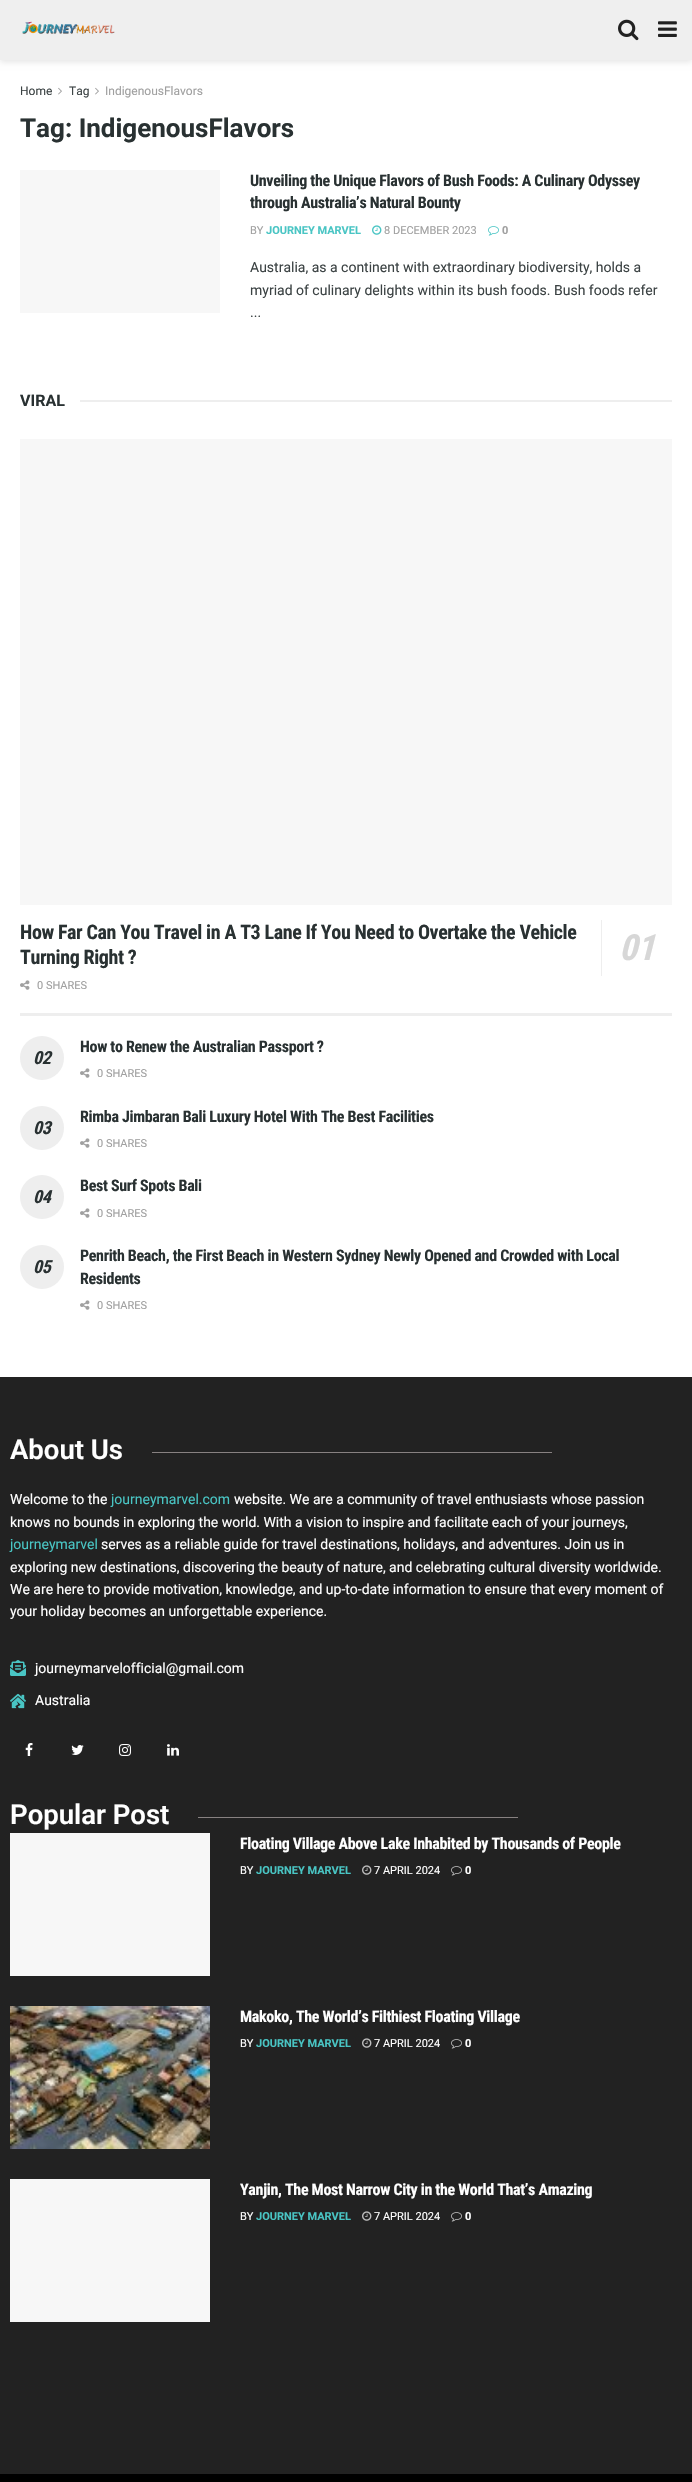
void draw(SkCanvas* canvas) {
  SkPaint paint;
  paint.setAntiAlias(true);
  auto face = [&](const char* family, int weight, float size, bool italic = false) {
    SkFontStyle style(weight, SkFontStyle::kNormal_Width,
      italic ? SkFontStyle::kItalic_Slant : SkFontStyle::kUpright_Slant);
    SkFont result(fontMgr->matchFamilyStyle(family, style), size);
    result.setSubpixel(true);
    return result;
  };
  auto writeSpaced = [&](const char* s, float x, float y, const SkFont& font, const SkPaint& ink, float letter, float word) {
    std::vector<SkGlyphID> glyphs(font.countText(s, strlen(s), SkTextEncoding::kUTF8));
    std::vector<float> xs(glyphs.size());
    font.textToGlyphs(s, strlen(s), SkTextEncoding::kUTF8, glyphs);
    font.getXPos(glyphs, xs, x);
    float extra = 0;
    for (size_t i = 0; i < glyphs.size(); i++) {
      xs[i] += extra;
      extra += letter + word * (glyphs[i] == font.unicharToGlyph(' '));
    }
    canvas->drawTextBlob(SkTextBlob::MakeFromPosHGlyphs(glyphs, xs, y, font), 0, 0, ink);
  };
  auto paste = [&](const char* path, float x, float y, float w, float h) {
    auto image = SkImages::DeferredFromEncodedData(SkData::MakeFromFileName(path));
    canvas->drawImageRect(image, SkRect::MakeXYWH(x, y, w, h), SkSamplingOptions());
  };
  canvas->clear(0xffffffff);
  paint.setColor(0x1a000000);
  paint.setMaskFilter(SkMaskFilter::MakeBlur(kNormal_SkBlurStyle, 3));
  canvas->drawRect(SkRect::MakeXYWH(0, 2, 692, 60), paint);
  paint.setMaskFilter(nullptr);
  paint.setColor(0xffefefef);
  canvas->drawRect(SkRect::MakeXYWH(0, 0, 692, 60), paint);
  paste("img/1.png", 22, 21, 93, 13);
  paste("img/2.png", 618, 19, 21, 22);
  paste("img/3.png", 658, 21, 19, 16);
  paste("img/4.png", 58, 87, 4, 8);
  paste("img/4.png", 95, 87, 4, 8);
  paint.setColor(0xfff7f7f7);
  canvas->drawRect(SkRect::MakeXYWH(20, 170, 200, 143), paint);
  paste("img/5.png", 372, 225, 10, 10);
  paste("img/6.png", 488, 226, 11, 10);
  {
    const struct { float x, y, w, h; SkColor color; } items[] = {
      {80, 400, 592, 2, 0xffeeeeee},
      {20, 1013, 652, 3, 0xffeeeeee},
      {20, 439, 652, 466, 0xfff7f7f7},
      {601, 920, 1, 56, 0xffeeeeee},
    };
    for (auto [x, y, w, h, color] : items) {
      paint.setColor(color);
      canvas->drawRect(SkRect::MakeXYWH(x, y, w, h), paint);
    }
  }
  paste("img/7.png", 20, 980, 10, 10);
  canvas->drawCircle(42, 1058, 22, paint);
  paste("img/7.png", 80, 1068, 10, 10);
  canvas->drawCircle(42, 1128, 22, paint);
  paste("img/7.png", 80, 1138, 10, 10);
  canvas->drawCircle(42, 1197, 22, paint);
  paste("img/7.png", 80, 1208, 10, 10);
  canvas->drawCircle(42, 1267, 22, paint);
  paste("img/7.png", 80, 1300, 10, 10);
  paint.setColor(0xff222222);
  canvas->drawRect(SkRect::MakeXYWH(0, 1377, 692, 1097), paint);
  paint.setColor(0xff878181);
  canvas->drawRect(SkRect::MakeXYWH(152, 1452, 400, 1), paint);
  paste("img/8.png", 10, 1660, 16, 16);
  paste("img/9.png", 10, 1693, 16, 16);
  paste("img/10.png", 25, 1743, 8, 13);
  paste("img/11.png", 71, 1745, 13, 10);
  paste("img/12.png", 119, 1744, 12, 12);
  paste("img/13.png", 167, 1744, 12, 12);
  canvas->drawRect(SkRect::MakeXYWH(198, 1817, 320, 1), paint);
  paint.setColor(0xfff7f7f7);
  canvas->drawRect(SkRect::MakeXYWH(10, 1833, 200, 143), paint);
  paste("img/14.png", 362, 1865, 10, 10);
  paste("img/15.png", 451, 1866, 11, 10);
  paste("img/16.png", 10, 2006, 200, 143);
  paste("img/14.png", 362, 2038, 10, 10);
  paste("img/15.png", 451, 2039, 11, 10);
  canvas->drawRect(SkRect::MakeXYWH(10, 2179, 200, 143), paint);
  paste("img/14.png", 362, 2211, 10, 10);
  paste("img/15.png", 451, 2212, 11, 10);
  paint.setColor(0xff000000);
  canvas->drawRect(SkRect::MakeXYWH(0, 2474, 692, 8), paint);
  auto f0 = face("Roboto", 400, 12);
  paint.setColor(0xff3c4344);
  canvas->drawString("Home", 20, 95, f0, paint);
  canvas->drawString("Tag", 69, 95, f0, paint);
  paint.setColor(0xffa0a0a0);
  canvas->drawString("IndigenousFlavors", 105, 95, f0, paint);
  auto f1 = face("Roboto", 700, 26);
  paint.setColor(0xff293132);
  canvas->drawString("Tag: IndigenousFlavors", 20, 137, f1, paint);
  auto f2 = face("Roboto Condensed", 700, 16);
  writeSpaced("Unveiling the Unique Flavors of Bush Foods: A Culinary Odyssey", 250, 186, f2, paint, -0.32f, 0);
  writeSpaced("through Australia’s Natural Bounty", 250, 208, f2, paint, -0.32f, 0);
  auto f3 = face("Roboto", 400, 11);
  paint.setColor(0xffa0a0a0);
  canvas->drawString("BY", 250, 234, f3, paint);
  auto f4 = face("Roboto", 700, 11);
  paint.setColor(0xff49c5c4);
  canvas->drawString("JOURNEY MARVEL", 266, 234, f4, paint);
  paint.setColor(0xffa0a0a0);
  canvas->drawString("8 DECEMBER 2023", 384, 234, f3, paint);
  canvas->drawString("0", 502, 234, f4, paint);
  auto f5 = face("Roboto", 400, 14);
  paint.setColor(0xff3c4344);
  {
    const struct { const char* s; float x, y; } items[] = {
      {"Australia, as a continent with extraordinary biodiversity, holds a", 250, 272},
      {"myriad of culinary delights within its bush foods. Bush foods refer", 250, 295},
      {"...", 250, 317},
    };
    for (auto [s, x, y] : items) {
      canvas->drawString(s, x, y, f5, paint);
    }
  }
  auto f6 = face("Roboto", 700, 16);
  paint.setColor(0xff293132);
  canvas->drawString("VIRAL", 20, 406, f6, paint);
  auto f7 = face("Roboto Condensed", 700, 20);
  writeSpaced("How Far Can You Travel in A T3 Lane If You Need to Overtake the Vehicle", 20, 939, f7, paint, -0.4f, 0);
  writeSpaced("Turning Right ?", 20, 964, f7, paint, -0.4f, 0);
  auto f8 = face("Roboto Condensed", 700, 36, true);
  paint.setColor(0xffd7d7d7);
  writeSpaced("01", 619, 960, f8, paint, -0.4f, 0);
  paint.setColor(0xffa0a0a0);
  canvas->drawString("0 SHARES", 37, 989, f3, paint);
  paint.setColor(0xff293132);
  writeSpaced("How to Renew the Australian Passport ?", 80, 1052, f2, paint, -0.32f, 0);
  auto f9 = face("Roboto Condensed", 700, 18, true);
  writeSpaced("02", 33, 1064, f9, paint, -0.32f, 0);
  paint.setColor(0xffa0a0a0);
  canvas->drawString("0 SHARES", 97, 1077, f3, paint);
  paint.setColor(0xff293132);
  writeSpaced("Rimba Jimbaran Bali Luxury Hotel With The Best Facilities", 80, 1122, f2, paint, -0.32f, 0);
  writeSpaced("03", 33, 1134, f9, paint, -0.32f, 0);
  paint.setColor(0xffa0a0a0);
  canvas->drawString("0 SHARES", 97, 1147, f3, paint);
  paint.setColor(0xff293132);
  writeSpaced("Best Surf Spots Bali", 80, 1191, f2, paint, -0.32f, 0);
  writeSpaced("04", 33, 1203, f9, paint, -0.32f, 0);
  paint.setColor(0xffa0a0a0);
  canvas->drawString("0 SHARES", 97, 1217, f3, paint);
  paint.setColor(0xff293132);
  writeSpaced("Penrith Beach, the First Beach in Western Sydney Newly Opened and Crowded with Local", 80, 1261, f2, paint, -0.32f, 0);
  writeSpaced("05", 33, 1273, f9, paint, -0.32f, 0);
  writeSpaced("Residents", 80, 1284, f2, paint, -0.32f, 0);
  paint.setColor(0xffa0a0a0);
  canvas->drawString("0 SHARES", 97, 1309, f3, paint);
  auto f10 = face("Roboto", 600, 27.5f);
  paint.setColor(0xffffffff);
  canvas->drawString("About Us", 10, 1459, f10, paint);
  canvas->drawString("Welcome to the", 10, 1504, f5, paint);
  paint.setColor(0xff49c5c4);
  canvas->drawString("journeymarvel.com", 111, 1504, f5, paint);
  paint.setColor(0xffffffff);
  canvas->drawString("website. We are a community of travel enthusiasts whose passion", 234, 1504, f5, paint);
  canvas->drawString("knows no bounds in exploring the world. With a vision to inspire and facilitate each of your journeys,", 10, 1527, f5, paint);
  paint.setColor(0xff49c5c4);
  canvas->drawString("journeymarvel", 10, 1549, f5, paint);
  paint.setColor(0xffffffff);
  {
    const struct { const char* s; float x, y; } items[] = {
      {"serves as a reliable guide for travel destinations, holidays, and adventures. Join us in", 101, 1549},
      {"exploring new destinations, discovering the beauty of nature, and celebrating cultural diversity worldwide.", 10, 1572},
      {"We are here to provide motivation, knowledge, and up-to-date information to ensure that every moment of", 10, 1594},
      {"your holiday becomes an unforgettable experience.", 10, 1616},
      {"journeymarvelofficial@gmail.com", 35, 1673},
      {"Australia", 35, 1705},
    };
    for (auto [s, x, y] : items) {
      canvas->drawString(s, x, y, f5, paint);
    }
  }
  canvas->drawString("Popular Post", 10, 1824, f10, paint);
  writeSpaced("Floating Village Above Lake Inhabited by Thousands of People", 240, 1849, f2, paint, -0.32f, 0);
  canvas->drawString("BY", 240, 1874, f3, paint);
  paint.setColor(0xff49c5c4);
  canvas->drawString("JOURNEY MARVEL", 256, 1874, f4, paint);
  paint.setColor(0xffffffff);
  canvas->drawString("7 APRIL 2024", 374, 1874, f3, paint);
  canvas->drawString("0", 465, 1874, f4, paint);
  writeSpaced("Makoko, The World’s Filthiest Floating Village", 240, 2022, f2, paint, -0.32f, 0);
  canvas->drawString("BY", 240, 2047, f3, paint);
  paint.setColor(0xff49c5c4);
  canvas->drawString("JOURNEY MARVEL", 256, 2047, f4, paint);
  paint.setColor(0xffffffff);
  canvas->drawString("7 APRIL 2024", 374, 2047, f3, paint);
  canvas->drawString("0", 465, 2047, f4, paint);
  writeSpaced("Yanjin, The Most Narrow City in the World That’s Amazing", 240, 2195, f2, paint, -0.32f, 0);
  canvas->drawString("BY", 240, 2220, f3, paint);
  paint.setColor(0xff49c5c4);
  canvas->drawString("JOURNEY MARVEL", 256, 2220, f4, paint);
  paint.setColor(0xffffffff);
  canvas->drawString("7 APRIL 2024", 374, 2220, f3, paint);
  canvas->drawString("0", 465, 2220, f4, paint);
}
